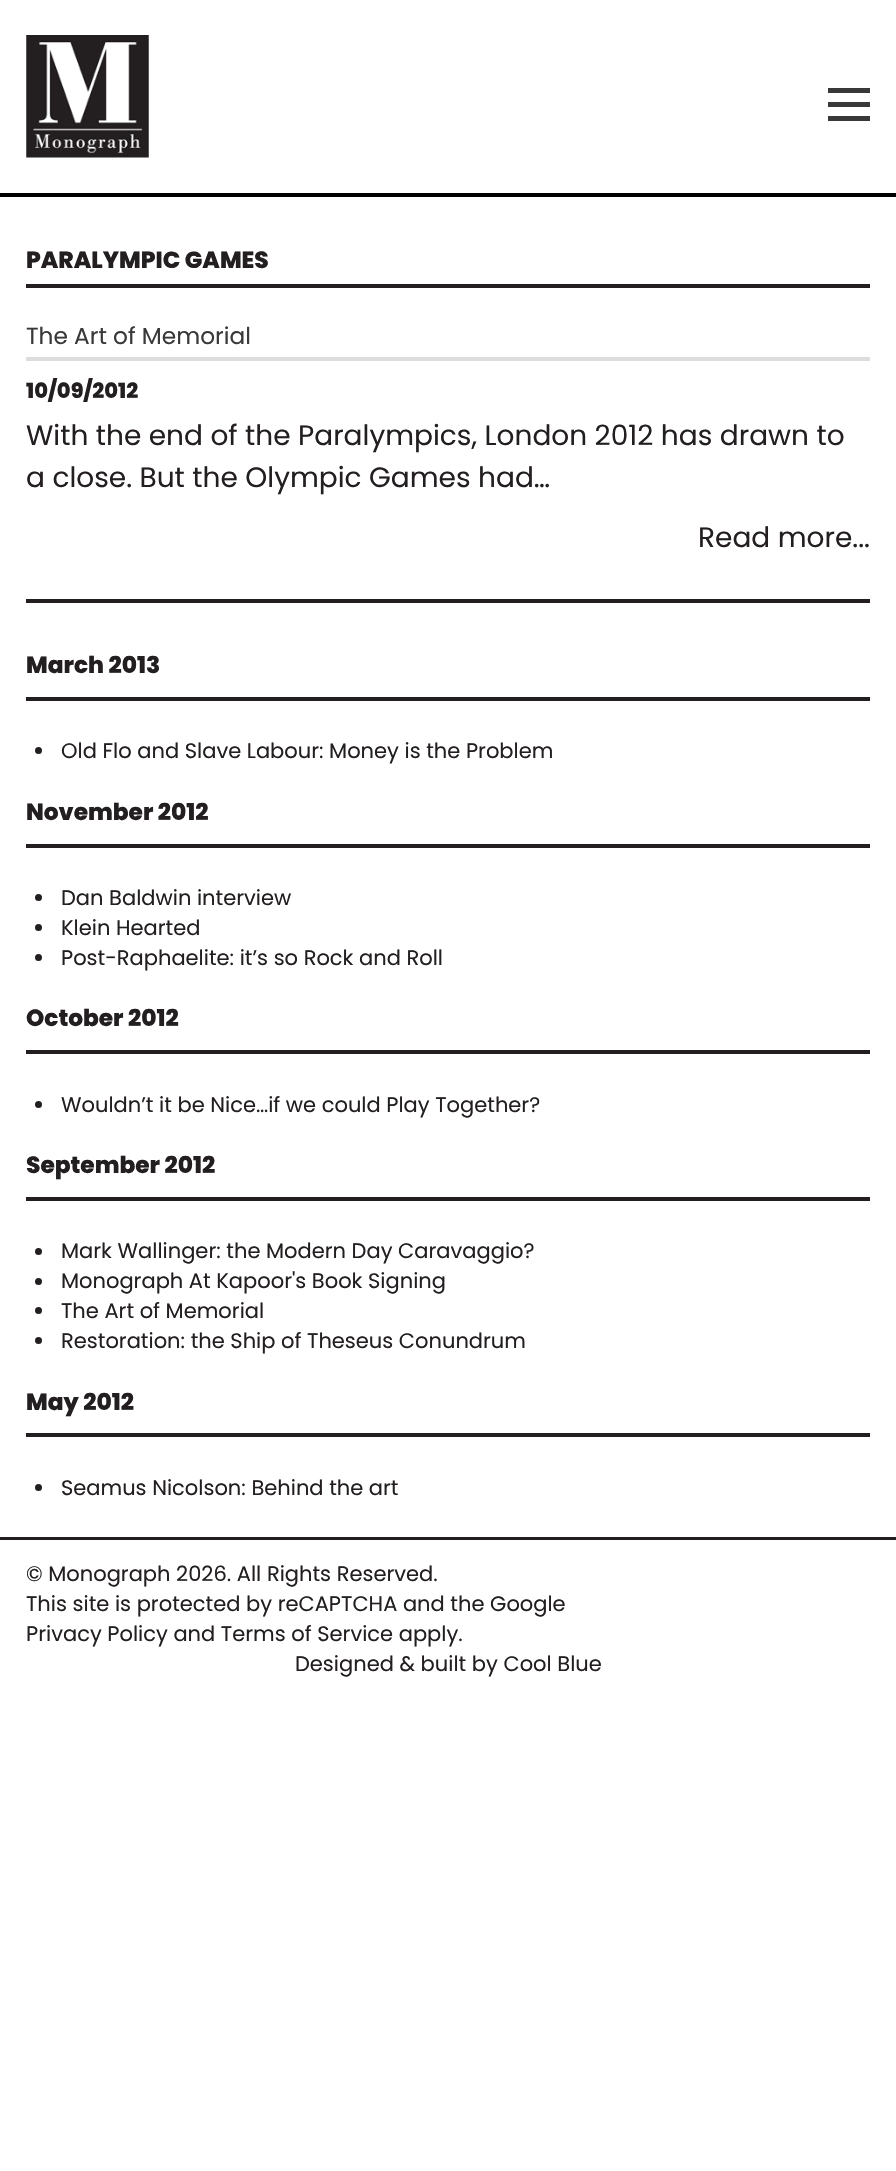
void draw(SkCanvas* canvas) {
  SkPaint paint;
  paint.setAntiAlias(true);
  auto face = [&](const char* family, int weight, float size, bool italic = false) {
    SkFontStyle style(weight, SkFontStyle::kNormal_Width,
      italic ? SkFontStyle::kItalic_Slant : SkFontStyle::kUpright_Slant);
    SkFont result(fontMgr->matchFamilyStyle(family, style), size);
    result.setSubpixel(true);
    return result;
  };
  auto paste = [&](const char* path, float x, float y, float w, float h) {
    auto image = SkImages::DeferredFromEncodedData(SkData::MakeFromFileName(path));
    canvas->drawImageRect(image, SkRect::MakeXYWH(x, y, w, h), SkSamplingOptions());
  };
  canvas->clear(0xffffffff);
  paint.setColor(0xff000000);
  canvas->drawRect(SkRect::MakeXYWH(0, 193, 896, 4), paint);
  paste("img/1.png", 26, 35, 123, 123);
  {
    const struct { float x, y, w, h; SkColor color; } items[] = {
      {828, 88, 42, 5, 0xff393939},
      {828, 102, 42, 5, 0xff393939},
      {828, 116, 42, 5, 0xff393939},
      {26, 284, 844, 4, 0xff231f20},
      {26, 357, 844, 4, 0xffdddddd},
      {26, 599, 844, 4, 0xff231f20},
      {26, 697, 844, 4, 0xff231f20},
    };
    for (auto [x, y, w, h, color] : items) {
      paint.setColor(color);
      canvas->drawRect(SkRect::MakeXYWH(x, y, w, h), paint);
    }
  }
  canvas->drawCircle(38.5f, 750.5f, 3.5f, paint);
  canvas->drawRect(SkRect::MakeXYWH(26, 844, 844, 4), paint);
  canvas->drawCircle(38.5f, 897.5f, 3.5f, paint);
  canvas->drawCircle(38.5f, 927.5f, 3.5f, paint);
  canvas->drawCircle(38.5f, 957.5f, 3.5f, paint);
  canvas->drawRect(SkRect::MakeXYWH(26, 1050, 844, 4), paint);
  canvas->drawCircle(38.5f, 1104.5f, 3.5f, paint);
  canvas->drawRect(SkRect::MakeXYWH(26, 1197, 844, 4), paint);
  canvas->drawCircle(38.5f, 1251.5f, 3.5f, paint);
  canvas->drawCircle(38.5f, 1281.5f, 3.5f, paint);
  canvas->drawCircle(38.5f, 1310.5f, 3.5f, paint);
  canvas->drawCircle(38.5f, 1340.5f, 3.5f, paint);
  canvas->drawRect(SkRect::MakeXYWH(26, 1433, 844, 4), paint);
  canvas->drawCircle(38.5f, 1487.5f, 3.5f, paint);
  canvas->drawRect(SkRect::MakeXYWH(0, 1537, 896, 3), paint);
  auto f0 = face("Poppins", 800, 23.25f);
  canvas->drawString("PARALYMPIC GAMES", 26, 268, f0, paint);
  auto f1 = face("Poppins", 400, 23.25f);
  paint.setColor(0xff393939);
  canvas->drawString("The Art of Memorial", 26, 344, f1, paint);
  auto f2 = face("Poppins", 800, 21);
  paint.setColor(0xff231f20);
  canvas->drawString("10/09/2012", 26, 398, f2, paint);
  auto f3 = face("Poppins", 400, 28);
  {
    const struct { const char* s; float x, y; } items[] = {
      {"With the end of the Paralympics, London 2012 has drawn to", 26, 445},
      {"a close. But the Olympic Games had…", 26, 487},
      {"Read more...", 698, 547},
    };
    for (auto [s, x, y] : items) {
      canvas->drawString(s, x, y, f3, paint);
    }
  }
  canvas->drawString("March 2013", 26, 673, f0, paint);
  auto f4 = face("Poppins", 400, 21);
  canvas->drawString("Old Flo and Slave Labour: Money is the Problem", 61, 758, f4, paint);
  canvas->drawString("November 2012", 26, 820, f0, paint);
  {
    const struct { const char* s; float x, y; } items[] = {
      {"Dan Baldwin interview", 61, 905},
      {"Klein Hearted", 61, 935},
      {"Post-Raphaelite: it’s so Rock and Roll", 61, 965},
    };
    for (auto [s, x, y] : items) {
      canvas->drawString(s, x, y, f4, paint);
    }
  }
  canvas->drawString("October 2012", 26, 1026, f0, paint);
  canvas->drawString("Wouldn’t it be Nice…if we could Play Together?", 61, 1112, f4, paint);
  canvas->drawString("September 2012", 26, 1173, f0, paint);
  {
    const struct { const char* s; float x, y; } items[] = {
      {"Mark Wallinger: the Modern Day Caravaggio?", 61, 1258},
      {"Monograph At Kapoor's Book Signing", 61, 1288},
      {"The Art of Memorial", 61, 1318},
      {"Restoration: the Ship of Theseus Conundrum", 61, 1348},
    };
    for (auto [s, x, y] : items) {
      canvas->drawString(s, x, y, f4, paint);
    }
  }
  canvas->drawString("May 2012", 26, 1410, f0, paint);
  {
    const struct { const char* s; float x, y; } items[] = {
      {"Seamus Nicolson: Behind the art", 61, 1495},
      {"© Monograph 2026. All Rights Reserved.", 26, 1581},
      {"This site is protected by reCAPTCHA and the Google", 26, 1611},
      {"Privacy Policy and Terms of Service apply.", 26, 1641},
      {"Designed & built by Cool Blue", 295, 1671},
    };
    for (auto [s, x, y] : items) {
      canvas->drawString(s, x, y, f4, paint);
    }
  }
}
